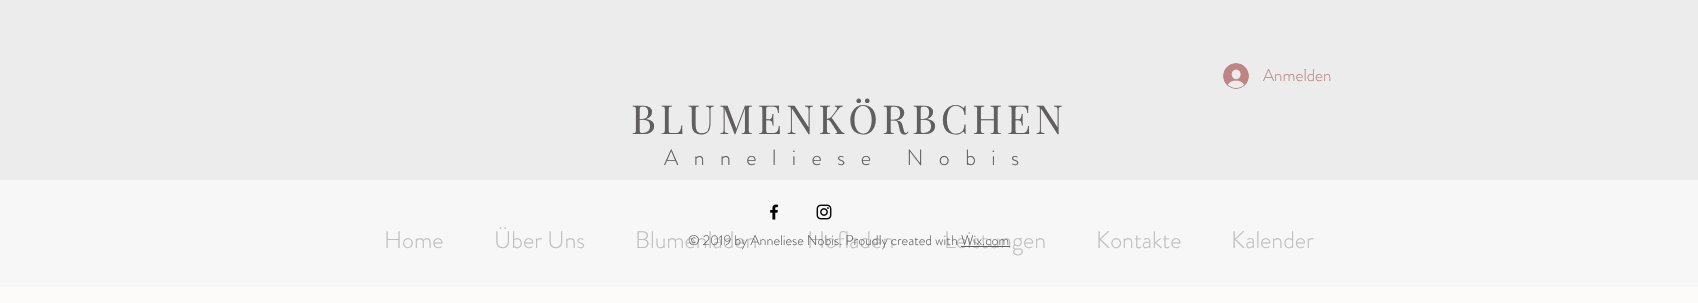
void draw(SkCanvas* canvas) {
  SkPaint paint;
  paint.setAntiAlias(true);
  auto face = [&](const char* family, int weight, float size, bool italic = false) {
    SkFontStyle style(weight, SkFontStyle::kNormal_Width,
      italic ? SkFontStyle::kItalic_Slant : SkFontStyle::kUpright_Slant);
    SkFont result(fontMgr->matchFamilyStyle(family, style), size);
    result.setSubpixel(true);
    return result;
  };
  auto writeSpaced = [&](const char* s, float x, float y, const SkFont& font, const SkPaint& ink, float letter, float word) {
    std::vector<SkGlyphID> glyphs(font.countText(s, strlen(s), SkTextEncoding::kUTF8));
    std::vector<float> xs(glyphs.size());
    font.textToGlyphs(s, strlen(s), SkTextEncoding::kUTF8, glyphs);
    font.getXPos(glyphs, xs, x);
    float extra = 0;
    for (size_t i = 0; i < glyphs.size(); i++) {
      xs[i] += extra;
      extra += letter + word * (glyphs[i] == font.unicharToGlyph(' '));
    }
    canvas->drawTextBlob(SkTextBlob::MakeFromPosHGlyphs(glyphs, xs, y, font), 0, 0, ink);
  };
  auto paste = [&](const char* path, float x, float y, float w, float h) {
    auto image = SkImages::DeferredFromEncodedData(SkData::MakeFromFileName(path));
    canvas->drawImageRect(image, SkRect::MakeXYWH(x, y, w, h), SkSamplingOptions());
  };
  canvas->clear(0xffececec);
  paste("img/1.png", 1223, 63, 26, 26);
  paint.setColor(0xfff7f7f7);
  canvas->drawRect(SkRect::MakeXYWH(0, 180, 1698, 107), paint);
  paste("img/2.png", 770, 204, 9, 16);
  paste("img/3.png", 816, 204, 16, 16);
  paint.setColor(0xfffdfafa);
  canvas->drawRect(SkRect::MakeXYWH(0, 287, 1698, 16), paint);
  auto f0 = face("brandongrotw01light", 300, 17);
  paint.setColor(0xffbf8484);
  canvas->drawString("Anmelden", 1263, 81, f0, paint);
  auto f1 = face("Playfair Display", 400, 40);
  paint.setColor(0xff605e5e);
  writeSpaced("BLUMENKÖRBCHEN", 631, 134, f1, paint, 4, 0);
  auto f2 = face("brandongrotw01light", 300, 22);
  writeSpaced("Anneliese Nobis", 664, 165, f2, paint, 15.4f, 0);
  auto f3 = face("brandongrotw01light", 300, 24);
  paint.setColor(0xffbfbfbf);
  {
    const struct { const char* s; float x, y; } items[] = {
      {"Home", 384, 248},
      {"Über Uns", 494, 248},
      {"Blumenladen", 635, 248},
      {"Hofladen", 807, 248},
      {"Leistungen", 944, 248},
      {"Kontakte", 1096, 248},
      {"Kalender", 1231, 248},
    };
    for (auto [s, x, y] : items) {
      canvas->drawString(s, x, y, f3, paint);
    }
  }
  auto f4 = face("brandongrotw01light", 300, 14);
  paint.setColor(0xff605e5e);
  canvas->drawString("© 2019 by Anneliese Nobis. Proudly created with Wix.com", 688, 245, f4, paint);
  canvas->drawRect(SkRect::MakeXYWH(961, 246, 49, 1), paint);
}
